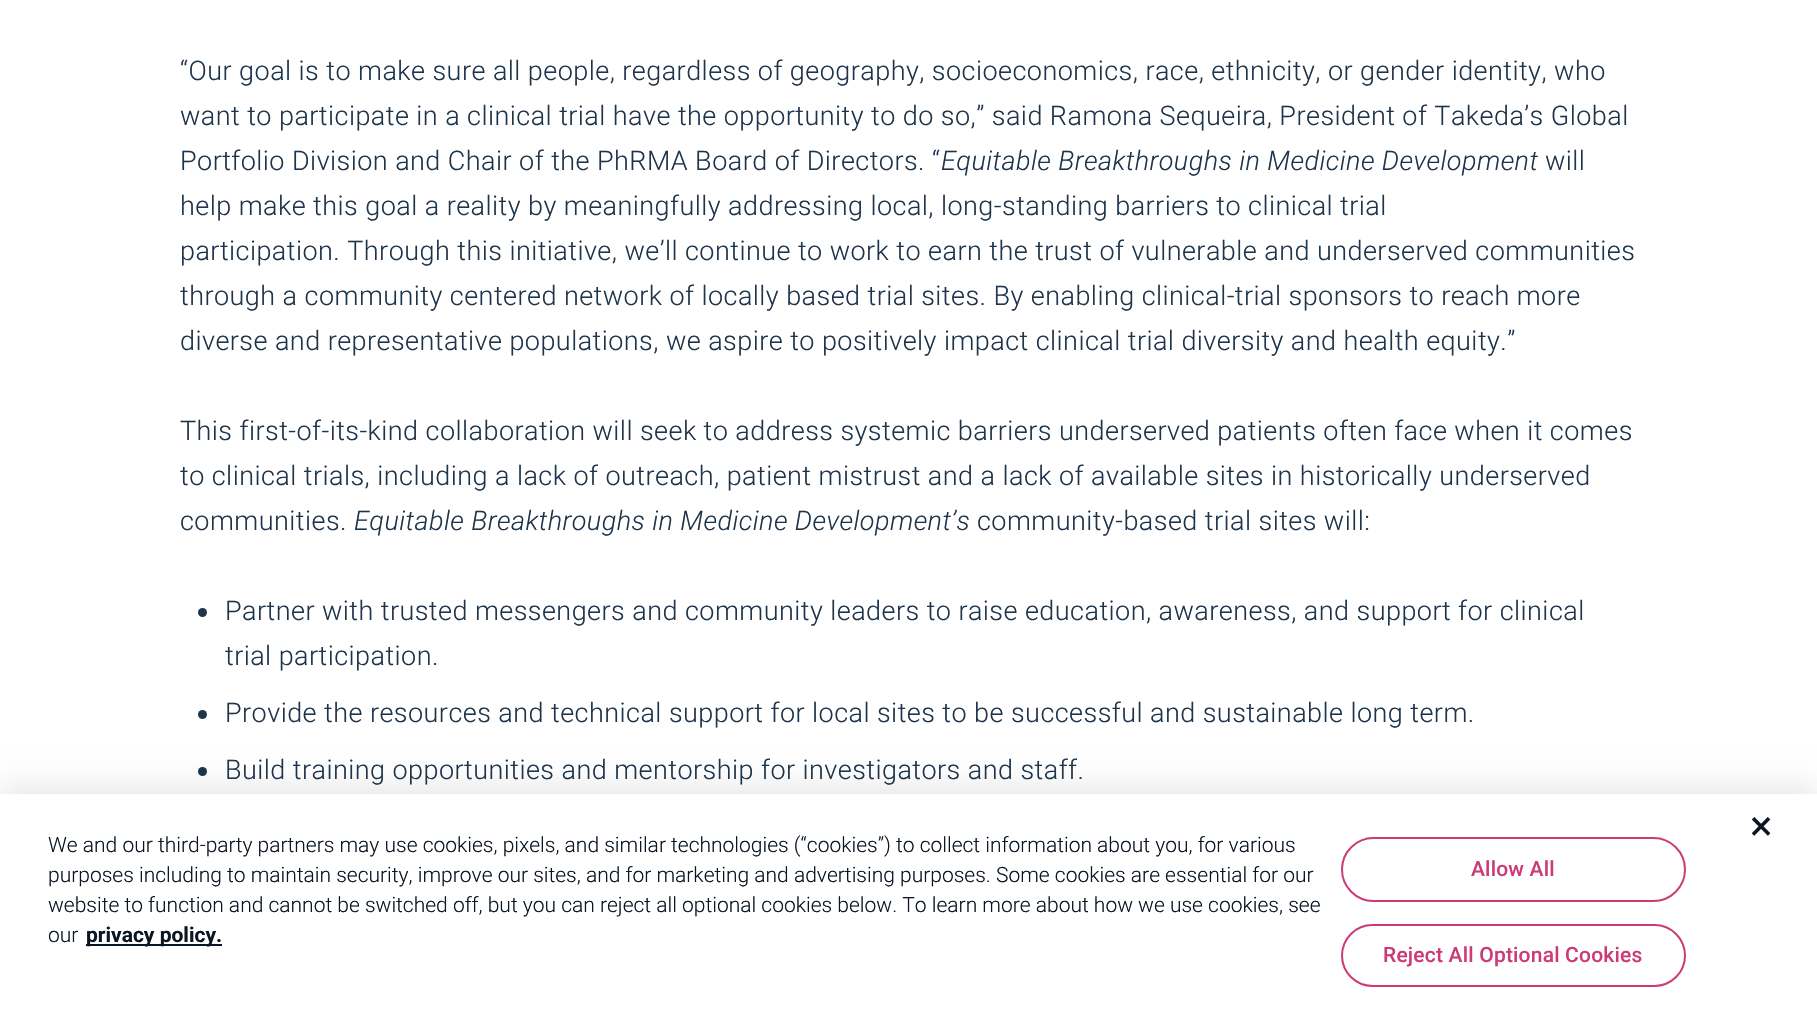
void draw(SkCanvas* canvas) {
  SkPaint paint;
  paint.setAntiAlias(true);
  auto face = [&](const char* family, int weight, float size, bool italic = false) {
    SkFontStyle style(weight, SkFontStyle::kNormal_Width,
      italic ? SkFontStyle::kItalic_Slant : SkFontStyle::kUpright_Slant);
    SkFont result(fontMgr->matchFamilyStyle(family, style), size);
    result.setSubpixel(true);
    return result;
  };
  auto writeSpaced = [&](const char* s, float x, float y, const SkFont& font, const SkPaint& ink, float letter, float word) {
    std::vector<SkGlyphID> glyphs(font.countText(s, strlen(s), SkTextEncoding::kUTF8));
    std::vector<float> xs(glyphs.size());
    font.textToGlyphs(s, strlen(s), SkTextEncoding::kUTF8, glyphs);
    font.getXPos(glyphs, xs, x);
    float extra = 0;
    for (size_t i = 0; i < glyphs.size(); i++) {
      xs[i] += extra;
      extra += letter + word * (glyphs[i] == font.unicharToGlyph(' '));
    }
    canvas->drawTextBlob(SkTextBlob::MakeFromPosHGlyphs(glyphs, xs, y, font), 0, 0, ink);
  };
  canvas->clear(0xffffffff);
  paint.setColor(0xff1e344b);
  canvas->drawCircle(202.5f, 612.5f, 4.5f, paint);
  canvas->drawCircle(202.5f, 714.5f, 4.5f, paint);
  canvas->drawCircle(202.5f, 771.5f, 4.5f, paint);
  paint.setColor(0x1a000000);
  paint.setMaskFilter(SkMaskFilter::MakeBlur(kNormal_SkBlurStyle, 15));
  canvas->drawRect(SkRect::MakeXYWH(0, 788, 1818, 237), paint);
  paint.setMaskFilter(nullptr);
  paint.setColor(0xffffffff);
  canvas->drawRect(SkRect::MakeXYWH(0, 794, 1817, 236), paint);
  paint.setColor(0xff0a1623);
  canvas->drawRect(SkRect::MakeXYWH(86, 944, 136, 2), paint);
  paint.setStroke(true);
  paint.setStrokeWidth(2);
  paint.setColor(0xffcc3a78);
  canvas->drawRoundRect(SkRect::MakeXYWH(1342, 838, 343, 63), 31.5f, 31.5f, paint);
  canvas->drawRoundRect(SkRect::MakeXYWH(1342, 925, 343, 61), 30.5f, 30.5f, paint);
  auto f0 = face("Roboto", 300, 27);
  paint.setStroke(false);
  paint.setColor(0xff1e344b);
  {
    const struct { const char* s; float x, y; } items[] = {
      {"“Our goal is to make sure all people, regardless of geography, socioeconomics, race, ethnicity, or gender identity, who", 180, 80},
      {"want to participate in a clinical trial have the opportunity to do so,” said Ramona Sequeira, President of Takeda’s Global", 180, 125},
      {"Portfolio Division and Chair of the PhRMA Board of Directors. “", 180, 170},
    };
    for (auto [s, x, y] : items) {
      writeSpaced(s, x, y, f0, paint, 0.45f, 0);
    }
  }
  auto f1 = face("Roboto", 300, 27, true);
  writeSpaced("Equitable Breakthroughs in Medicine Development", 941, 170, f1, paint, 0.45f, 0);
  {
    const struct { const char* s; float x, y; } items[] = {
      {"will", 1545, 170},
      {"help make this goal a reality by meaningfully addressing local, long-standing barriers to clinical trial", 180, 215},
      {"participation. Through this initiative, we’ll continue to work to earn the trust of vulnerable and underserved communities", 180, 260},
      {"through a community centered network of locally based trial sites. By enabling clinical-trial sponsors to reach more", 180, 305},
      {"diverse and representative populations, we aspire to positively impact clinical trial diversity and health equity.”", 180, 350},
      {"This first-of-its-kind collaboration will seek to address systemic barriers underserved patients often face when it comes", 180, 440},
      {"to clinical trials, including a lack of outreach, patient mistrust and a lack of available sites in historically underserved", 180, 485},
      {"communities.", 180, 530},
    };
    for (auto [s, x, y] : items) {
      writeSpaced(s, x, y, f0, paint, 0.45f, 0);
    }
  }
  writeSpaced("Equitable Breakthroughs in Medicine Development’s", 354, 530, f1, paint, 0.45f, 0);
  {
    const struct { const char* s; float x, y; } items[] = {
      {"community-based trial sites will:", 977, 530},
      {"Partner with trusted messengers and community leaders to raise education, awareness, and support for clinical", 225, 620},
      {"trial participation.", 225, 665},
      {"Provide the resources and technical support for local sites to be successful and sustainable long term.", 225, 722},
      {"Build training opportunities and mentorship for investigators and staff.", 225, 779},
    };
    for (auto [s, x, y] : items) {
      writeSpaced(s, x, y, f0, paint, 0.45f, 0);
    }
  }
  auto f2 = face("Roboto", 400, 42);
  paint.setColor(0xff0a1623);
  canvas->drawString("×", 1750, 840, f2, paint);
  auto f3 = face("Roboto", 300, 21);
  {
    const struct { const char* s; float x, y; } items[] = {
      {"We and our third-party partners may use cookies, pixels, and similar technologies (“cookies”) to collect information about you, for various", 48, 852},
      {"purposes including to maintain security, improve our sites, and for marketing and advertising purposes. Some cookies are essential for our", 48, 882},
      {"website to function and cannot be switched off, but you can reject all optional cookies below. To learn more about how we use cookies, see", 48, 912},
      {"our", 48, 942},
    };
    for (auto [s, x, y] : items) {
      canvas->drawString(s, x, y, f3, paint);
    }
  }
  auto f4 = face("Roboto", 700, 21);
  canvas->drawString("privacy policy.", 86, 942, f4, paint);
  auto f5 = face("Roboto", 500, 21);
  paint.setColor(0xffcc3a78);
  writeSpaced("Allow All", 1471, 876, f5, paint, 0.2f, 0);
  writeSpaced("Reject All Optional Cookies", 1383, 962, f5, paint, 0.2f, 0);
}
